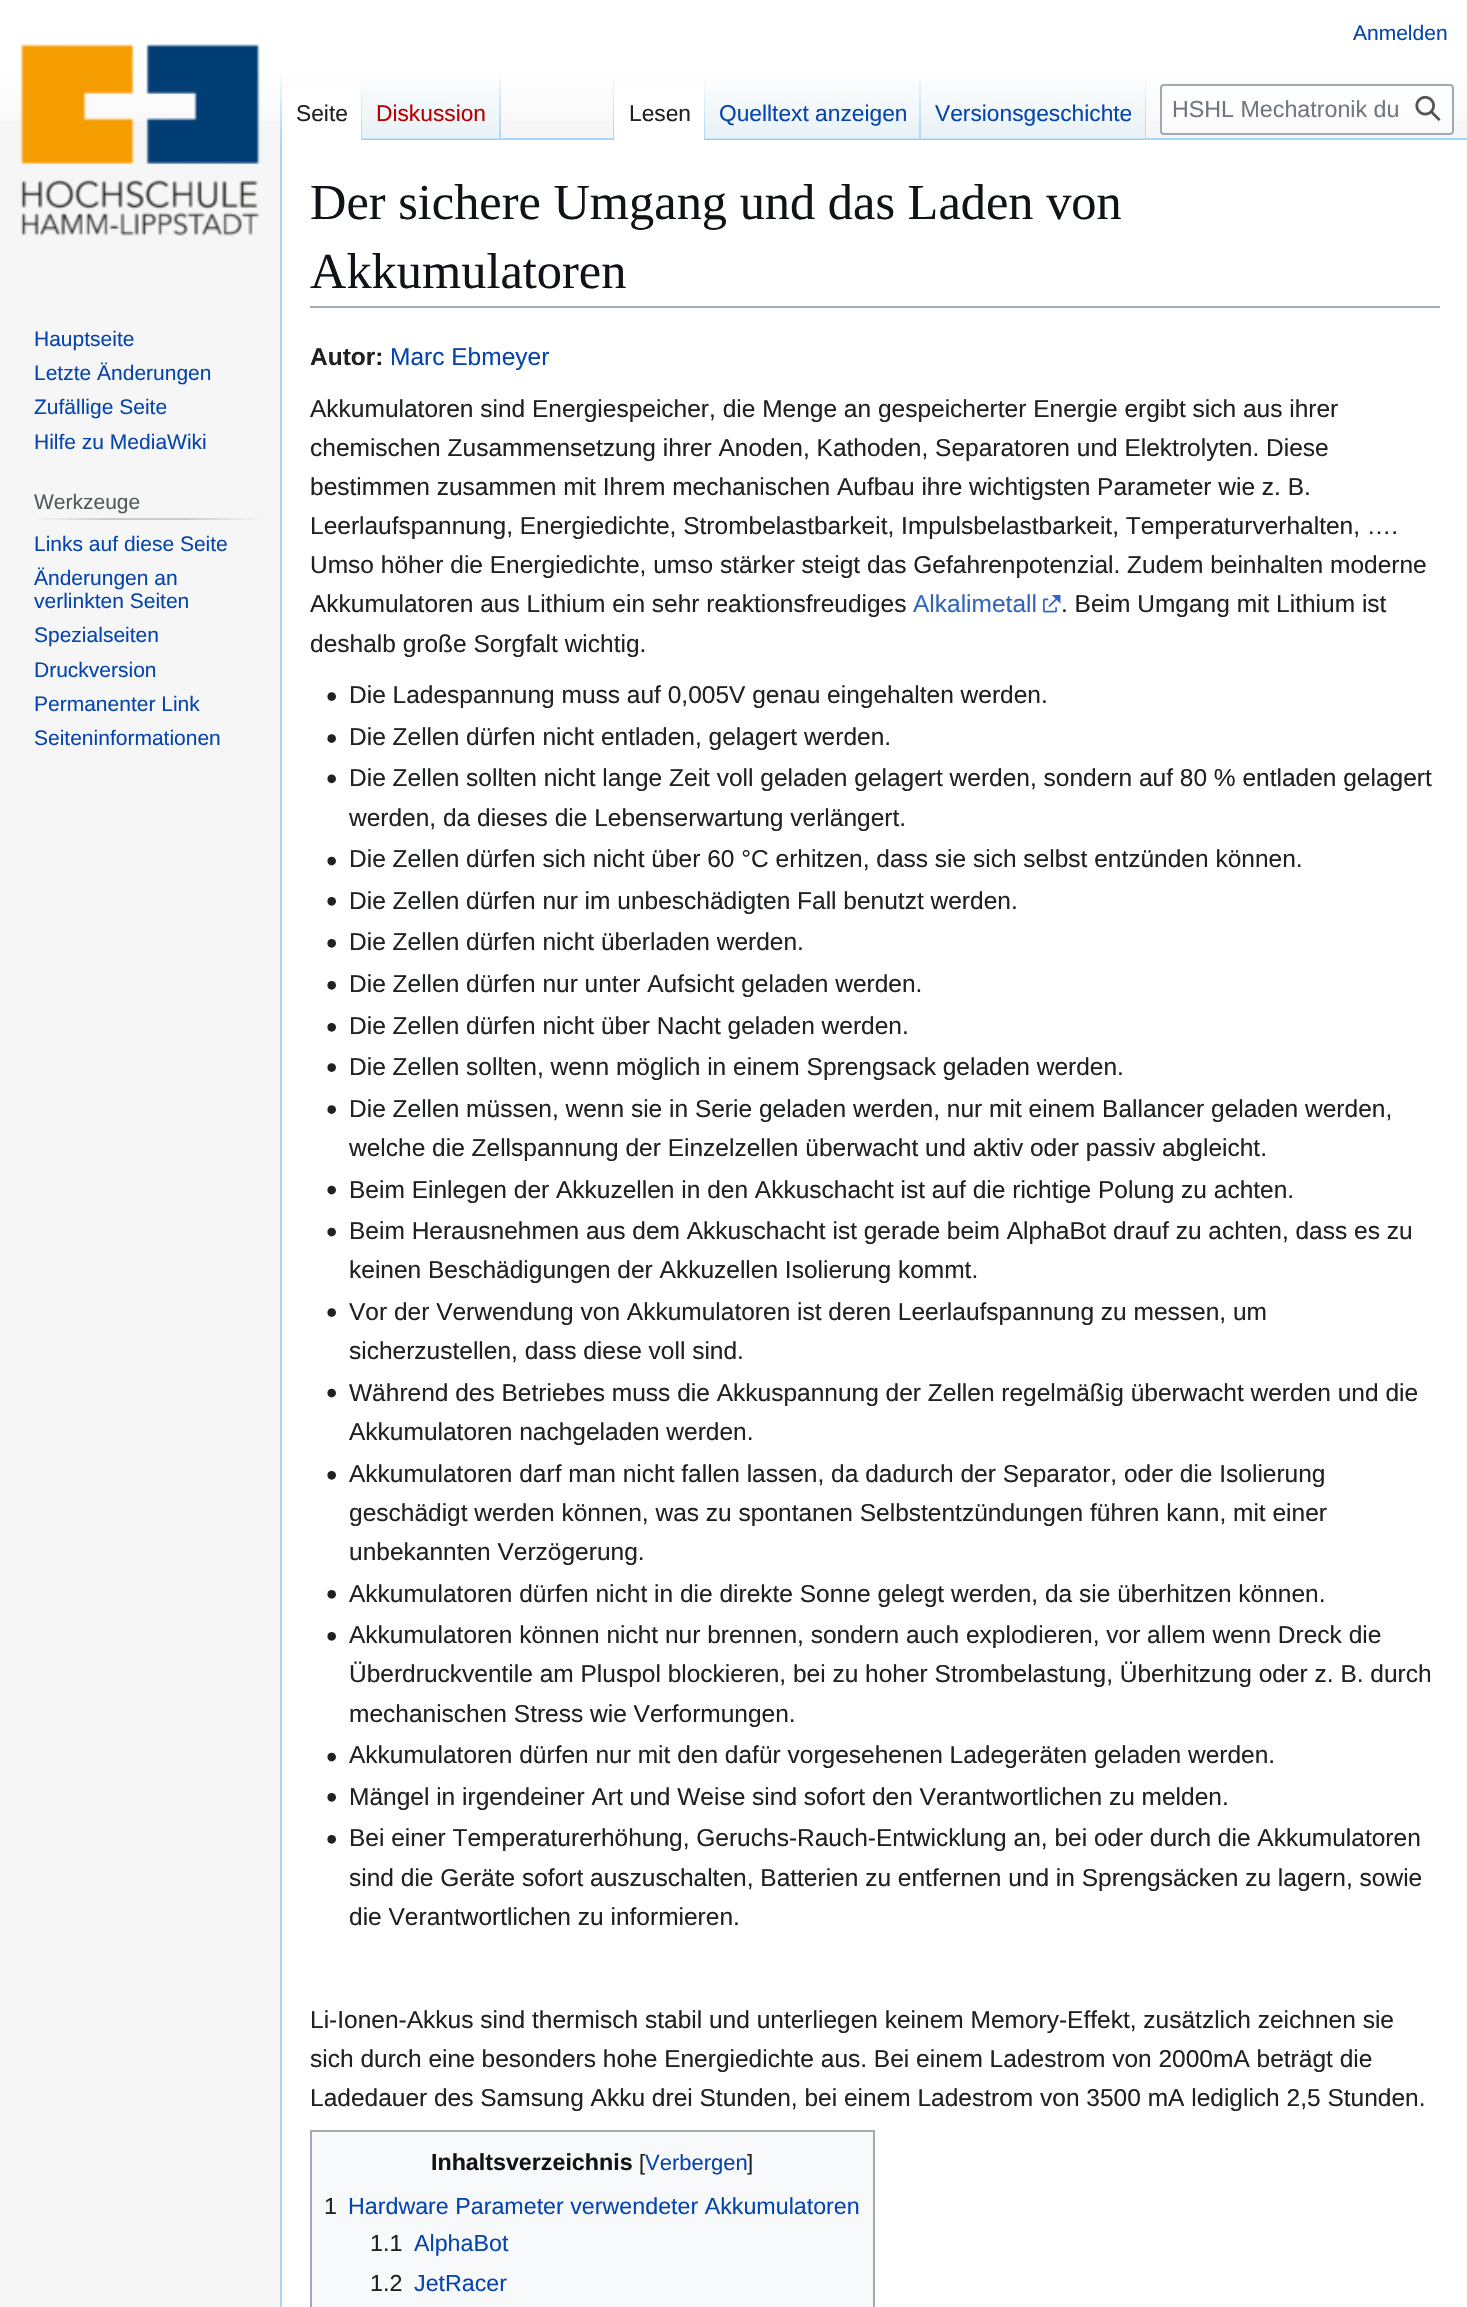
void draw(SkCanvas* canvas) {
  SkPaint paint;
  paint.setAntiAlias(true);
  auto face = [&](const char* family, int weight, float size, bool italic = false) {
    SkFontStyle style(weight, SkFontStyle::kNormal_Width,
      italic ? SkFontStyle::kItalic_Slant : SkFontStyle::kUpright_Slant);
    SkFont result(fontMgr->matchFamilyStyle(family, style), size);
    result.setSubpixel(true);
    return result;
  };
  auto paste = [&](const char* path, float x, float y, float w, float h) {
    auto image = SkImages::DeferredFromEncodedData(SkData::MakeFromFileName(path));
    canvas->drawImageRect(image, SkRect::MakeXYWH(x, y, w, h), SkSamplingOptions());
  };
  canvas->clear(0xfff6f6f6);
  {
    const SkColor colors[] = {0xffffffff, 0xfff6f6f6};
    const float stops[] = {0.5f, 1};
    const SkPoint ends[] = {{734, 0}, {734, 140}};
    paint.setShader(SkGradientShader::MakeLinear(ends, colors, stops, 2, SkTileMode::kClamp));
    paint.setAlpha(255);
  }
  canvas->drawRect(SkRect::MakeXYWH(0, 0, 1467, 121), paint);
  paint.setShader(nullptr);
  paint.setColor(0xffa7d7f9);
  canvas->drawRect(SkRect::MakeXYWH(280, 138, 2, 2169), paint);
  {
    const SkColor colors[] = {0x00a7d7f9, 0xffa7d7f9};
    const float stops[] = {0, 1};
    const SkPoint ends[] = {{281, 70}, {281, 140}};
    paint.setShader(SkGradientShader::MakeLinear(ends, colors, stops, 2, SkTileMode::kClamp));
    paint.setAlpha(255);
  }
  canvas->drawRect(SkRect::MakeXYWH(280, 70, 2, 70), paint);
  paint.setShader(nullptr);
  paint.setColor(0xffffffff);
  canvas->drawRect(SkRect::MakeXYWH(282, 89, 79, 51), paint);
  {
    const SkColor colors[] = {0xffffffff, 0xffa7d7f9};
    const float stops[] = {0, 1};
    const SkPoint ends[] = {{361, 70}, {361, 140}};
    paint.setShader(SkGradientShader::MakeLinear(ends, colors, stops, 2, SkTileMode::kClamp));
    paint.setAlpha(255);
  }
  canvas->drawRect(SkRect::MakeXYWH(361, 70, 1, 70), paint);
  {
    const SkColor colors[] = {0xff77c1f6, 0xffe8f2f8, 0xffffffff};
    const float stops[] = {0, 0.03f, 1};
    const SkPoint ends[] = {{431, 140}, {431, 70}};
    paint.setShader(SkGradientShader::MakeLinear(ends, colors, stops, 3, SkTileMode::kClamp));
    paint.setAlpha(255);
  }
  canvas->drawRect(SkRect::MakeXYWH(362, 80, 139, 60), paint);
  {
    const SkColor colors[] = {0x00a7d7f9, 0xffa7d7f9};
    const float stops[] = {0, 1};
    const SkPoint ends[] = {{500, 70}, {500, 140}};
    paint.setShader(SkGradientShader::MakeLinear(ends, colors, stops, 2, SkTileMode::kClamp));
    paint.setAlpha(255);
  }
  canvas->drawRect(SkRect::MakeXYWH(499, 70, 2, 70), paint);
  paint.setShader(nullptr);
  paint.setColor(0xffa7d7f9);
  canvas->drawRect(SkRect::MakeXYWH(501, 138, 966, 2), paint);
  {
    const SkColor colors[] = {0x00a7d7f9, 0xffa7d7f9};
    const float stops[] = {0, 1};
    const SkPoint ends[] = {{613, 70}, {613, 140}};
    paint.setShader(SkGradientShader::MakeLinear(ends, colors, stops, 2, SkTileMode::kClamp));
    paint.setAlpha(255);
  }
  canvas->drawRect(SkRect::MakeXYWH(613, 70, 1, 70), paint);
  paint.setShader(nullptr);
  paint.setColor(0xffffffff);
  canvas->drawRect(SkRect::MakeXYWH(614, 89, 90, 51), paint);
  {
    const SkColor colors[] = {0xffffffff, 0xffa7d7f9};
    const float stops[] = {0, 1};
    const SkPoint ends[] = {{704, 70}, {704, 140}};
    paint.setShader(SkGradientShader::MakeLinear(ends, colors, stops, 2, SkTileMode::kClamp));
    paint.setAlpha(255);
  }
  canvas->drawRect(SkRect::MakeXYWH(704, 70, 1, 70), paint);
  {
    const SkColor colors[] = {0xff77c1f6, 0xffe8f2f8, 0xffffffff};
    const float stops[] = {0, 0.03f, 1};
    const SkPoint ends[] = {{813, 140}, {813, 70}};
    paint.setShader(SkGradientShader::MakeLinear(ends, colors, stops, 3, SkTileMode::kClamp));
    paint.setAlpha(255);
  }
  canvas->drawRect(SkRect::MakeXYWH(705, 80, 216, 60), paint);
  {
    const SkColor colors[] = {0x00a7d7f9, 0xffa7d7f9};
    const float stops[] = {0, 1};
    const SkPoint ends[] = {{920, 70}, {920, 140}};
    paint.setShader(SkGradientShader::MakeLinear(ends, colors, stops, 2, SkTileMode::kClamp));
    paint.setAlpha(255);
  }
  canvas->drawRect(SkRect::MakeXYWH(919, 70, 2, 70), paint);
  {
    const SkColor colors[] = {0xff77c1f6, 0xffe8f2f8, 0xffffffff};
    const float stops[] = {0, 0.03f, 1};
    const SkPoint ends[] = {{1033, 140}, {1033, 70}};
    paint.setShader(SkGradientShader::MakeLinear(ends, colors, stops, 3, SkTileMode::kClamp));
    paint.setAlpha(255);
  }
  canvas->drawRect(SkRect::MakeXYWH(921, 80, 225, 60), paint);
  {
    const SkColor colors[] = {0x00a7d7f9, 0xffa7d7f9};
    const float stops[] = {0, 1};
    const SkPoint ends[] = {{1145, 70}, {1145, 140}};
    paint.setShader(SkGradientShader::MakeLinear(ends, colors, stops, 2, SkTileMode::kClamp));
    paint.setAlpha(255);
  }
  canvas->drawRect(SkRect::MakeXYWH(1145, 70, 1, 70), paint);
  paint.setShader(nullptr);
  paint.setColor(0x80ffffff);
  canvas->drawRoundRect(SkRect::MakeXYWH(1161, 85, 292, 49), 3, 3, paint);
  paint.setStroke(true);
  paint.setStrokeWidth(2);
  paint.setColor(0xffa2a9b1);
  canvas->drawRoundRect(SkRect::MakeXYWH(1161, 85, 292, 49), 3, 3, paint);
  paste("img/1.png", 1415, 95, 26, 26);
  paste("img/2.png", 20, 44, 240, 192);
  paint.setStroke(false);
  {
    const SkColor colors[] = {0xfff6f6f6, 0xffc8ccd1, 0xffc8ccd1, 0xfff6f6f6};
    const float stops[] = {0, 0.33f, 0.66f, 1};
    const SkPoint ends[] = {{33, 519}, {263, 519}};
    paint.setShader(SkGradientShader::MakeLinear(ends, colors, stops, 4, SkTileMode::kClamp));
    paint.setAlpha(255);
  }
  canvas->drawRect(SkRect::MakeXYWH(33, 518, 230, 2), paint);
  paint.setShader(nullptr);
  paint.setColor(0xffffffff);
  canvas->drawRect(SkRect::MakeXYWH(282, 140, 1185, 2167), paint);
  paint.setColor(0xffa2a9b1);
  canvas->drawRect(SkRect::MakeXYWH(310, 306, 1130, 2), paint);
  paste("img/3.png", 1043, 595, 18, 18);
  paste("img/4.png", 327, 692, 9, 9);
  paste("img/4.png", 327, 734, 9, 9);
  paste("img/5.png", 327, 774, 9, 10);
  paste("img/6.png", 327, 856, 9, 10);
  paste("img/7.png", 327, 897, 9, 9);
  paste("img/7.png", 327, 939, 9, 9);
  paste("img/7.png", 327, 981, 9, 9);
  paste("img/7.png", 327, 1023, 9, 9);
  paste("img/4.png", 327, 1063, 9, 9);
  paste("img/4.png", 327, 1105, 9, 9);
  paste("img/6.png", 327, 1185, 9, 10);
  paste("img/6.png", 327, 1227, 9, 10);
  paste("img/4.png", 327, 1308, 9, 9);
  paste("img/6.png", 327, 1388, 9, 10);
  paste("img/7.png", 327, 1471, 9, 9);
  paste("img/7.png", 327, 1590, 9, 9);
  paste("img/7.png", 327, 1632, 9, 9);
  paste("img/6.png", 327, 1752, 9, 10);
  paste("img/7.png", 327, 1793, 9, 9);
  paste("img/7.png", 327, 1835, 9, 9);
  paint.setColor(0xfff8f9fa);
  canvas->drawRect(SkRect::MakeXYWH(311, 2131, 563, 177), paint);
  paint.setStroke(true);
  paint.setColor(0xffa2a9b1);
  canvas->drawRect(SkRect::MakeXYWH(311, 2131, 563, 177), paint);
  auto f0 = face("Liberation Sans", 400, 21);
  paint.setStroke(false);
  paint.setColor(0xff0645ad);
  canvas->drawString("Anmelden", 1353, 40, f0, paint);
  auto f1 = face("Liberation Sans", 400, 22.75f);
  paint.setColor(0xff202122);
  canvas->drawString("Seite", 296, 121, f1, paint);
  paint.setColor(0xffba0000);
  canvas->drawString("Diskussion", 376, 121, f1, paint);
  paint.setColor(0xff202122);
  canvas->drawString("Lesen", 629, 121, f1, paint);
  paint.setColor(0xff0645ad);
  canvas->drawString("Quelltext anzeigen", 719, 121, f1, paint);
  canvas->drawString("Versionsgeschichte", 935, 121, f1, paint);
  auto f2 = face("Liberation Sans", 400, 23.25f);
  paint.setColor(0xff72777d);
  canvas->drawString("HSHL Mechatronik du", 1172, 117, f2, paint);
  paint.setColor(0xff0645ad);
  {
    const struct { const char* s; float x, y; } items[] = {
      {"Hauptseite", 34, 346},
      {"Letzte Änderungen", 34, 380},
      {"Zufällige Seite", 34, 414},
      {"Hilfe zu MediaWiki", 34, 449},
    };
    for (auto [s, x, y] : items) {
      canvas->drawString(s, x, y, f0, paint);
    }
  }
  paint.setColor(0xff54595d);
  canvas->drawString("Werkzeuge", 34, 509, f0, paint);
  paint.setColor(0xff0645ad);
  {
    const struct { const char* s; float x, y; } items[] = {
      {"Links auf diese Seite", 34, 551},
      {"Änderungen an", 34, 585},
      {"verlinkten Seiten", 34, 608},
      {"Spezialseiten", 34, 642},
      {"Druckversion", 34, 677},
      {"Permanenter Link", 34, 711},
      {"Seiteninformationen", 34, 745},
    };
    for (auto [s, x, y] : items) {
      canvas->drawString(s, x, y, f0, paint);
    }
  }
  auto f3 = face("Liberation Serif", 400, 50.4f);
  paint.setColor(0xff101418);
  canvas->drawString("Der sichere Umgang und das Laden von", 310, 219, f3, paint);
  canvas->drawString("Akkumulatoren", 310, 288, f3, paint);
  auto f4 = face("Liberation Sans", 700, 24.5f);
  paint.setColor(0xff202122);
  canvas->drawString("Autor:", 310, 365, f4, paint);
  auto f5 = face("Liberation Sans", 400, 24.5f);
  paint.setColor(0xff0645ad);
  canvas->drawString("Marc Ebmeyer", 390, 365, f5, paint);
  paint.setColor(0xff202122);
  {
    const struct { const char* s; float x, y; } items[] = {
      {"Akkumulatoren sind Energiespeicher, die Menge an gespeicherter Energie ergibt sich aus ihrer", 310, 417},
      {"chemischen Zusammensetzung ihrer Anoden, Kathoden, Separatoren und Elektrolyten. Diese", 310, 456},
      {"bestimmen zusammen mit Ihrem mechanischen Aufbau ihre wichtigsten Parameter wie z. B.", 310, 495},
      {"Leerlaufspannung, Energiedichte, Strombelastbarkeit, Impulsbelastbarkeit, Temperaturverhalten, ….", 310, 534},
      {"Umso höher die Energiedichte, umso stärker steigt das Gefahrenpotenzial. Zudem beinhalten moderne", 310, 573},
      {"Akkumulatoren aus Lithium ein sehr reaktionsfreudiges", 310, 612},
    };
    for (auto [s, x, y] : items) {
      canvas->drawString(s, x, y, f5, paint);
    }
  }
  paint.setColor(0xff3366bb);
  canvas->drawString("Alkalimetall", 913, 612, f5, paint);
  paint.setColor(0xff202122);
  {
    const struct { const char* s; float x, y; } items[] = {
      {". Beim Umgang mit Lithium ist", 1061, 612},
      {"deshalb große Sorgfalt wichtig.", 310, 652},
      {"Die Ladespannung muss auf 0,005V genau eingehalten werden.", 349, 703},
      {"Die Zellen dürfen nicht entladen, gelagert werden.", 349, 745},
      {"Die Zellen sollten nicht lange Zeit voll geladen gelagert werden, sondern auf 80 % entladen gelagert", 349, 786},
      {"werden, da dieses die Lebenserwartung verlängert.", 349, 826},
      {"Die Zellen dürfen sich nicht über 60 °C erhitzen, dass sie sich selbst entzünden können.", 349, 867},
      {"Die Zellen dürfen nur im unbeschädigten Fall benutzt werden.", 349, 909},
      {"Die Zellen dürfen nicht überladen werden.", 349, 950},
      {"Die Zellen dürfen nur unter Aufsicht geladen werden.", 349, 992},
      {"Die Zellen dürfen nicht über Nacht geladen werden.", 349, 1034},
      {"Die Zellen sollten, wenn möglich in einem Sprengsack geladen werden.", 349, 1075},
      {"Die Zellen müssen, wenn sie in Serie geladen werden, nur mit einem Ballancer geladen werden,", 349, 1117},
      {"welche die Zellspannung der Einzelzellen überwacht und aktiv oder passiv abgleicht.", 349, 1156},
      {"Beim Einlegen der Akkuzellen in den Akkuschacht ist auf die richtige Polung zu achten.", 349, 1198},
      {"Beim Herausnehmen aus dem Akkuschacht ist gerade beim AlphaBot drauf zu achten, dass es zu", 349, 1239},
      {"keinen Beschädigungen der Akkuzellen Isolierung kommt.", 349, 1278},
      {"Vor der Verwendung von Akkumulatoren ist deren Leerlaufspannung zu messen, um", 349, 1320},
      {"sicherzustellen, dass diese voll sind.", 349, 1359},
      {"Während des Betriebes muss die Akkuspannung der Zellen regelmäßig überwacht werden und die", 349, 1401},
      {"Akkumulatoren nachgeladen werden.", 349, 1440},
      {"Akkumulatoren darf man nicht fallen lassen, da dadurch der Separator, oder die Isolierung", 349, 1482},
      {"geschädigt werden können, was zu spontanen Selbstentzündungen führen kann, mit einer", 349, 1521},
      {"unbekannten Verzögerung.", 349, 1560},
      {"Akkumulatoren dürfen nicht in die direkte Sonne gelegt werden, da sie überhitzen können.", 349, 1602},
      {"Akkumulatoren können nicht nur brennen, sondern auch explodieren, vor allem wenn Dreck die", 349, 1643},
      {"Überdruckventile am Pluspol blockieren, bei zu hoher Strombelastung, Überhitzung oder z. B. durch", 349, 1682},
      {"mechanischen Stress wie Verformungen.", 349, 1722},
      {"Akkumulatoren dürfen nur mit den dafür vorgesehenen Ladegeräten geladen werden.", 349, 1763},
      {"Mängel in irgendeiner Art und Weise sind sofort den Verantwortlichen zu melden.", 349, 1805},
      {"Bei einer Temperaturerhöhung, Geruchs-Rauch-Entwicklung an, bei oder durch die Akkumulatoren", 349, 1846},
      {"sind die Geräte sofort auszuschalten, Batterien zu entfernen und in Sprengsäcken zu lagern, sowie", 349, 1886},
      {"die Verantwortlichen zu informieren.", 349, 1925},
      {"Li-Ionen-Akkus sind thermisch stabil und unterliegen keinem Memory-Effekt, zusätzlich zeichnen sie", 310, 2028},
      {"sich durch eine besonders hohe Energiedichte aus. Bei einem Ladestrom von 2000mA beträgt die", 310, 2067},
      {"Ladedauer des Samsung Akku drei Stunden, bei einem Ladestrom von 3500 mA lediglich 2,5 Stunden.", 310, 2106},
    };
    for (auto [s, x, y] : items) {
      canvas->drawString(s, x, y, f5, paint);
    }
  }
  auto f6 = face("Liberation Sans", 700, 23.25f);
  paint.setColor(0xff101418);
  canvas->drawString("Inhaltsverzeichnis", 431, 2170, f6, paint);
  auto f7 = face("Liberation Sans", 400, 22);
  paint.setColor(0xff202122);
  canvas->drawString("[", 639, 2170, f7, paint);
  paint.setColor(0xff0645ad);
  canvas->drawString("Verbergen", 645, 2170, f7, paint);
  paint.setColor(0xff202122);
  canvas->drawString("]", 747, 2170, f7, paint);
  canvas->drawString("1", 324, 2214, f2, paint);
  paint.setColor(0xff0645ad);
  canvas->drawString("Hardware Parameter verwendeter Akkumulatoren", 348, 2214, f2, paint);
  paint.setColor(0xff202122);
  canvas->drawString("1.1", 370, 2251, f2, paint);
  paint.setColor(0xff0645ad);
  canvas->drawString("AlphaBot", 414, 2251, f2, paint);
  paint.setColor(0xff202122);
  canvas->drawString("1.2", 370, 2291, f2, paint);
  paint.setColor(0xff0645ad);
  canvas->drawString("JetRacer", 414, 2291, f2, paint);
}
